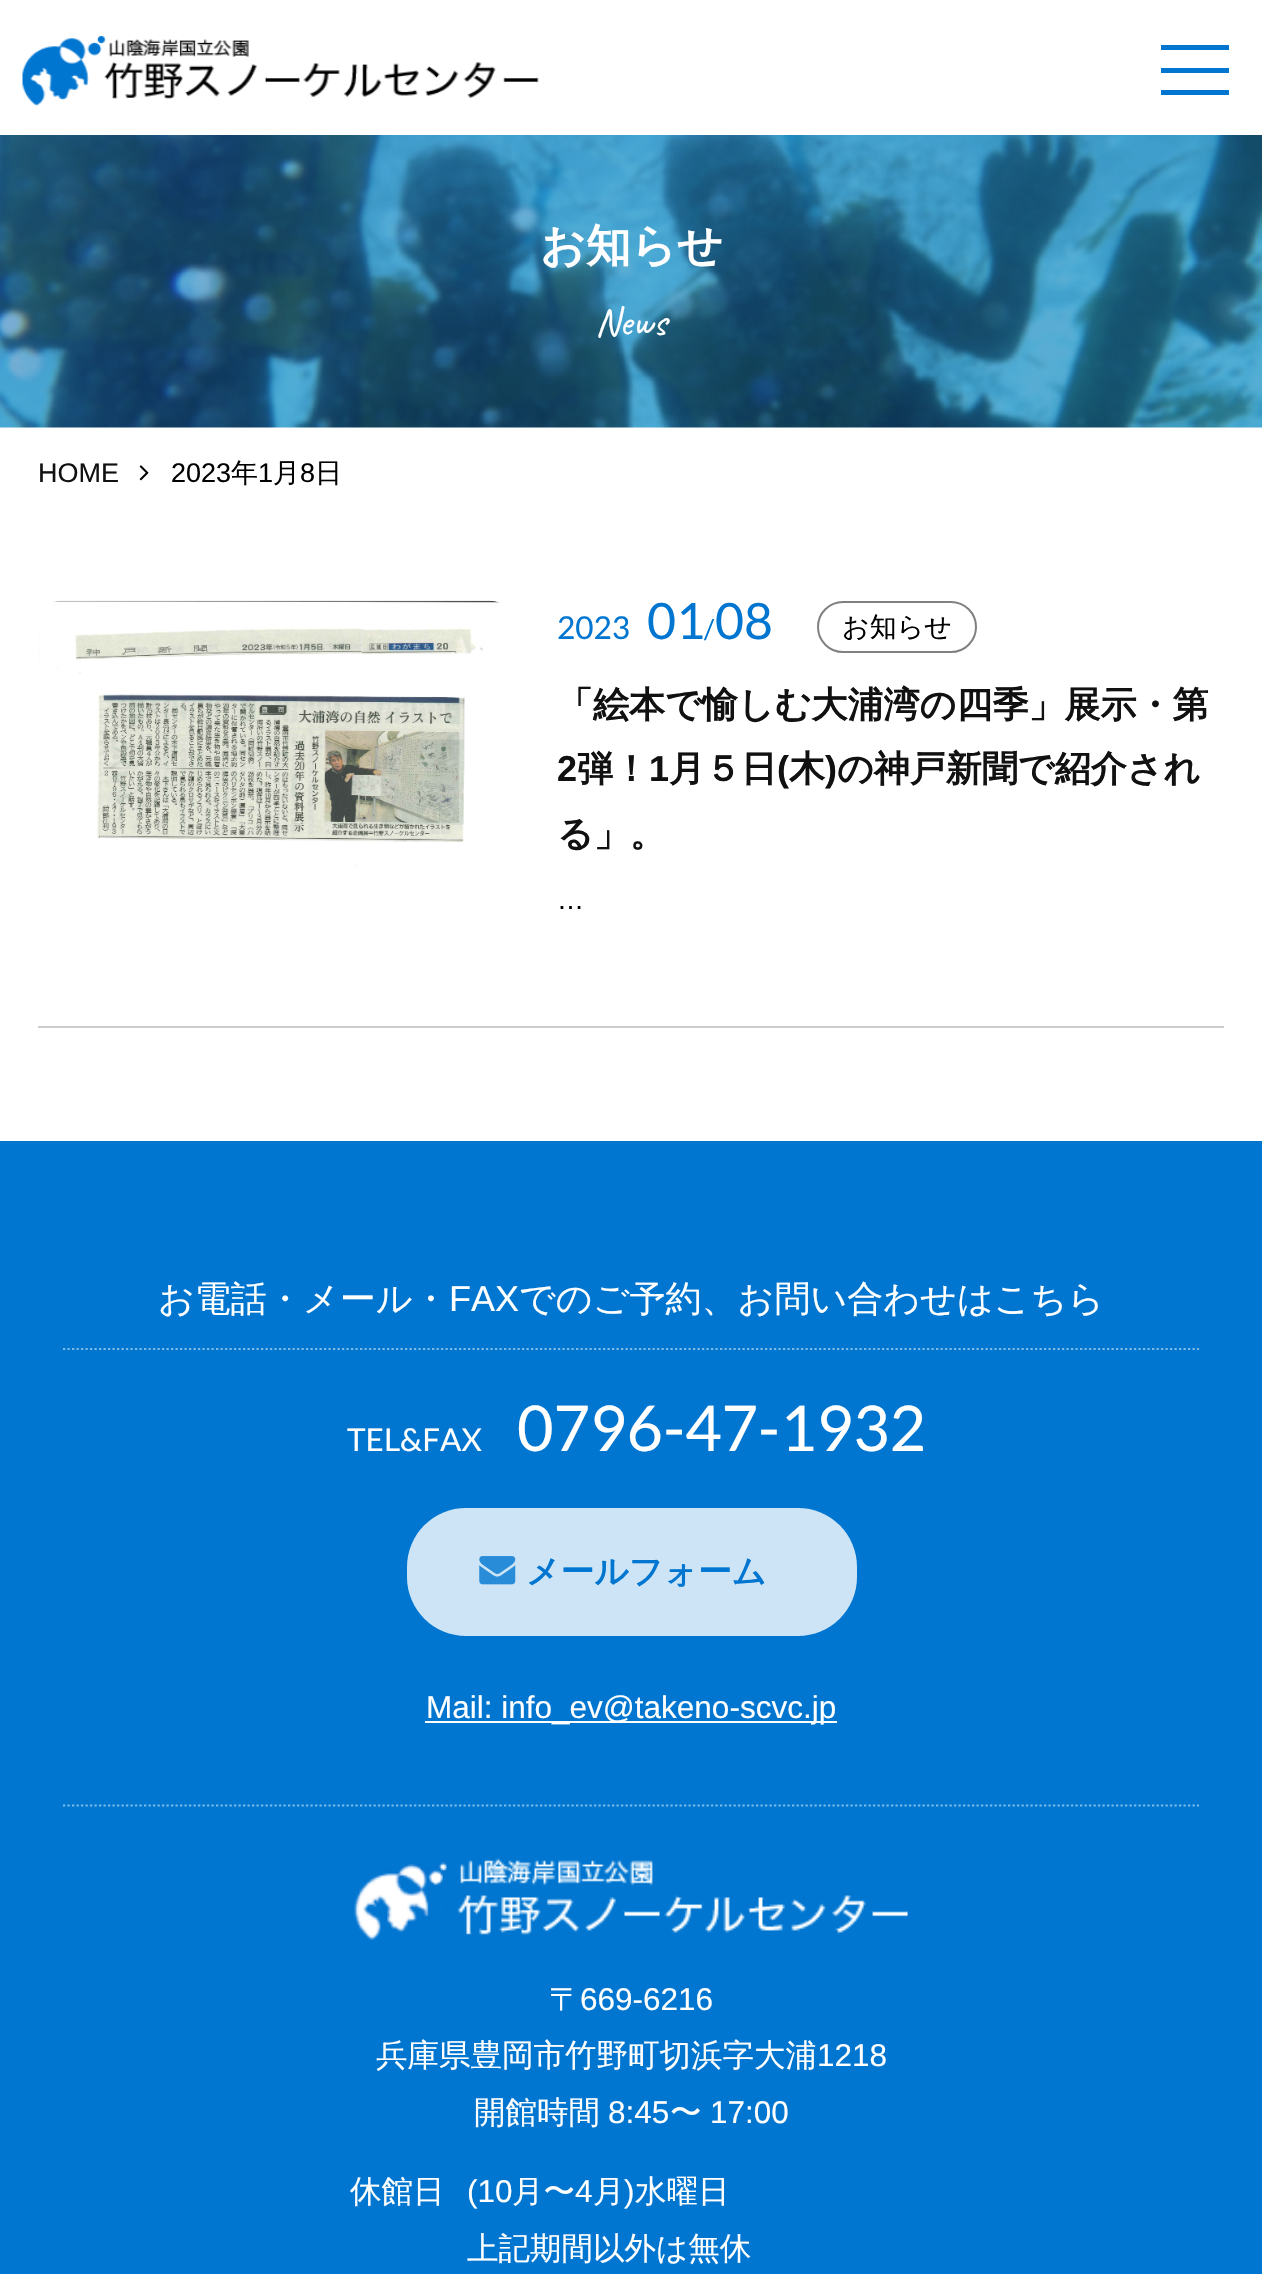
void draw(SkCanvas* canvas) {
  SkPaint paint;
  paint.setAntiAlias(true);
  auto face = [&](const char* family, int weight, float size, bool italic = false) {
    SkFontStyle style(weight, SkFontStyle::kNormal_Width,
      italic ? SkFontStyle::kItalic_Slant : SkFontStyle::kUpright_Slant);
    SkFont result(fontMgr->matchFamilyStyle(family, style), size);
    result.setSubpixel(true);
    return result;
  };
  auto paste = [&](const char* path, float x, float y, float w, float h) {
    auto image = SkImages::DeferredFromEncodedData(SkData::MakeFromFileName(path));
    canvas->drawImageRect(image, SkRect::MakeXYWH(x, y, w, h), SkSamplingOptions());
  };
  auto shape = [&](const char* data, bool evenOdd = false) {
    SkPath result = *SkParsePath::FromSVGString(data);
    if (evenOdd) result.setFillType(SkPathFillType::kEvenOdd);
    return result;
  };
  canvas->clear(0xffffffff);
  paste("img/1.png", 22, 36, 517, 70);
  {
    const struct { float x, y, w, h; SkColor color; } items[] = {
      {1161, 68, 68, 5, 0xff0076d1},
      {1161, 45, 68, 5, 0xff0076d1},
      {1161, 90, 68, 5, 0xff0076d1},
    };
    for (auto [x, y, w, h, color] : items) {
      paint.setColor(color);
      canvas->drawRect(SkRect::MakeXYWH(x, y, w, h), paint);
    }
  }
  paste("img/2.png", 0, 135, 1262, 293);
  paste("img/3.png", 139, 465, 10, 16);
  paint.setColor(0xffcccccc);
  canvas->drawRect(SkRect::MakeXYWH(38, 1026, 1186, 2), paint);
  paste("img/4.png", 38, 600, 462, 297);
  paint.setStroke(true);
  paint.setStrokeWidth(2);
  paint.setColor(0xff808080);
  canvas->drawRoundRect(SkRect::MakeXYWH(818, 602, 158, 50), 25, 25, paint);
  paint.setStroke(false);
  paint.setColor(0xff0076d1);
  canvas->drawRect(SkRect::MakeXYWH(0, 1141, 1262, 1133), paint);
  paint.setStroke(true);
  paint.setStrokeWidth(2.2f);
  paint.setColor(0xff7fbbe8);
  paint.setPathEffect(SkDashPathEffect::Make({{2.25f, 2.25f}}, 0));
  canvas->drawPath(shape("M63 1349H1199"), paint);
  paint.setPathEffect(nullptr);
  paint.setStroke(false);
  paint.setColor(0xffcce4f6);
  canvas->drawRoundRect(SkRect::MakeXYWH(407, 1508, 450, 128), 59, 59, paint);
  paste("img/5.png", 479, 1556, 37, 29);
  paint.setColor(0xffffffff);
  canvas->drawRect(SkRect::MakeXYWH(425, 1721, 412, 2), paint);
  paint.setStroke(true);
  paint.setColor(0xff7fbbe8);
  paint.setPathEffect(SkDashPathEffect::Make({{2.25f, 2.25f}}, 0));
  canvas->drawPath(shape("M63 1805.5H1199"), paint);
  paint.setPathEffect(nullptr);
  paste("img/6.png", 354, 1858, 554, 82);
  auto f0 = face("WenQuanYi Zen Hei", 700, 45);
  paint.setStroke(false);
  paint.setColor(0xffffffff);
  canvas->drawString("お知らせ", 540, 261, f0, paint);
  auto f1 = face("Caveat", 400, 40);
  canvas->drawString("News", 595, 335, f1, paint);
  auto f2 = face("Liberation Sans", 400, 27);
  paint.setColor(0xff111111);
  canvas->drawString("HOME", 38, 482, f2, paint);
  paint.setColor(0xff000000);
  canvas->drawString("2023", 171, 482, f2, paint);
  auto f3 = face("WenQuanYi Zen Hei", 500, 27);
  canvas->drawString("年", 231, 482, f3, paint);
  canvas->drawString("1", 258, 482, f2, paint);
  canvas->drawString("月", 273, 482, f3, paint);
  canvas->drawString("8", 300, 482, f2, paint);
  canvas->drawString("日", 315, 482, f3, paint);
  auto f4 = face("Lato", 400, 31.5f);
  paint.setColor(0xff0076d1);
  canvas->drawString("2023", 557, 639, f4, paint);
  auto f5 = face("Lato", 400, 50);
  canvas->drawString("01", 647, 639, f5, paint);
  auto f6 = face("Lato", 400, 27);
  canvas->drawString("/", 704, 639, f6, paint);
  canvas->drawString("08", 715, 639, f5, paint);
  paint.setColor(0xff000000);
  canvas->drawString("お知らせ", 842, 636, f3, paint);
  auto f7 = face("WenQuanYi Zen Hei", 700, 36);
  paint.setColor(0xff111111);
  canvas->drawString("「絵本で愉しむ大浦湾の四季」展示・第", 557, 717, f7, paint);
  auto f8 = face("Liberation Sans", 700, 36);
  canvas->drawString("2", 557, 781, f8, paint);
  canvas->drawString("弾！", 577, 781, f7, paint);
  canvas->drawString("1", 649, 781, f8, paint);
  canvas->drawString("月５日", 669, 781, f7, paint);
  canvas->drawString("(", 777, 781, f8, paint);
  canvas->drawString("木", 789, 781, f7, paint);
  canvas->drawString(")", 825, 781, f8, paint);
  canvas->drawString("の神戸新聞で紹介され", 837, 781, f7, paint);
  canvas->drawString("る」。", 557, 846, f7, paint);
  paint.setColor(0xff000000);
  canvas->drawString("…", 557, 909, f2, paint);
  auto f9 = face("WenQuanYi Zen Hei", 500, 36);
  paint.setColor(0xffffffff);
  canvas->drawString("お電話・メール・", 158, 1311, f9, paint);
  auto f10 = face("Liberation Sans", 400, 36);
  canvas->drawString("FAX", 449, 1311, f10, paint);
  canvas->drawString("でのご予約、お問い合わせはこちら", 519, 1311, f9, paint);
  canvas->drawString("TEL&FAX", 347, 1451, f4, paint);
  auto f11 = face("Lato", 400, 63);
  canvas->drawString("0796-47-1932", 517, 1451, f11, paint);
  auto f12 = face("WenQuanYi Zen Hei", 700, 33.75f);
  paint.setColor(0xff0076d1);
  canvas->drawString("メールフォーム", 526, 1583, f12, paint);
  auto f13 = face("Liberation Sans", 400, 31.5f);
  paint.setColor(0xffffffff);
  canvas->drawString("Mail: info_ev@takeno-scvc.jp", 426, 1718, f13, paint);
  auto f14 = face("WenQuanYi Zen Hei", 500, 31.5f);
  canvas->drawString("〒", 549, 2010, f14, paint);
  canvas->drawString("669-6216", 580, 2010, f13, paint);
  canvas->drawString("兵庫県豊岡市竹野町切浜字大浦", 376, 2066, f14, paint);
  canvas->drawString("1218", 817, 2066, f13, paint);
  canvas->drawString("開館時間", 474, 2123, f14, paint);
  canvas->drawString("8:45", 608, 2123, f13, paint);
  canvas->drawString("〜", 670, 2123, f14, paint);
  canvas->drawString("17:00", 710, 2123, f13, paint);
  canvas->drawString("休館日", 350, 2202, f14, paint);
  canvas->drawString("(10", 467, 2202, f13, paint);
  canvas->drawString("月〜", 512, 2202, f14, paint);
  canvas->drawString("4", 575, 2202, f13, paint);
  canvas->drawString("月", 593, 2202, f14, paint);
  canvas->drawString(")", 624, 2202, f13, paint);
  canvas->drawString("水曜日", 635, 2202, f14, paint);
  canvas->drawString("上記期間以外は無休", 467, 2259, f14, paint);
}
